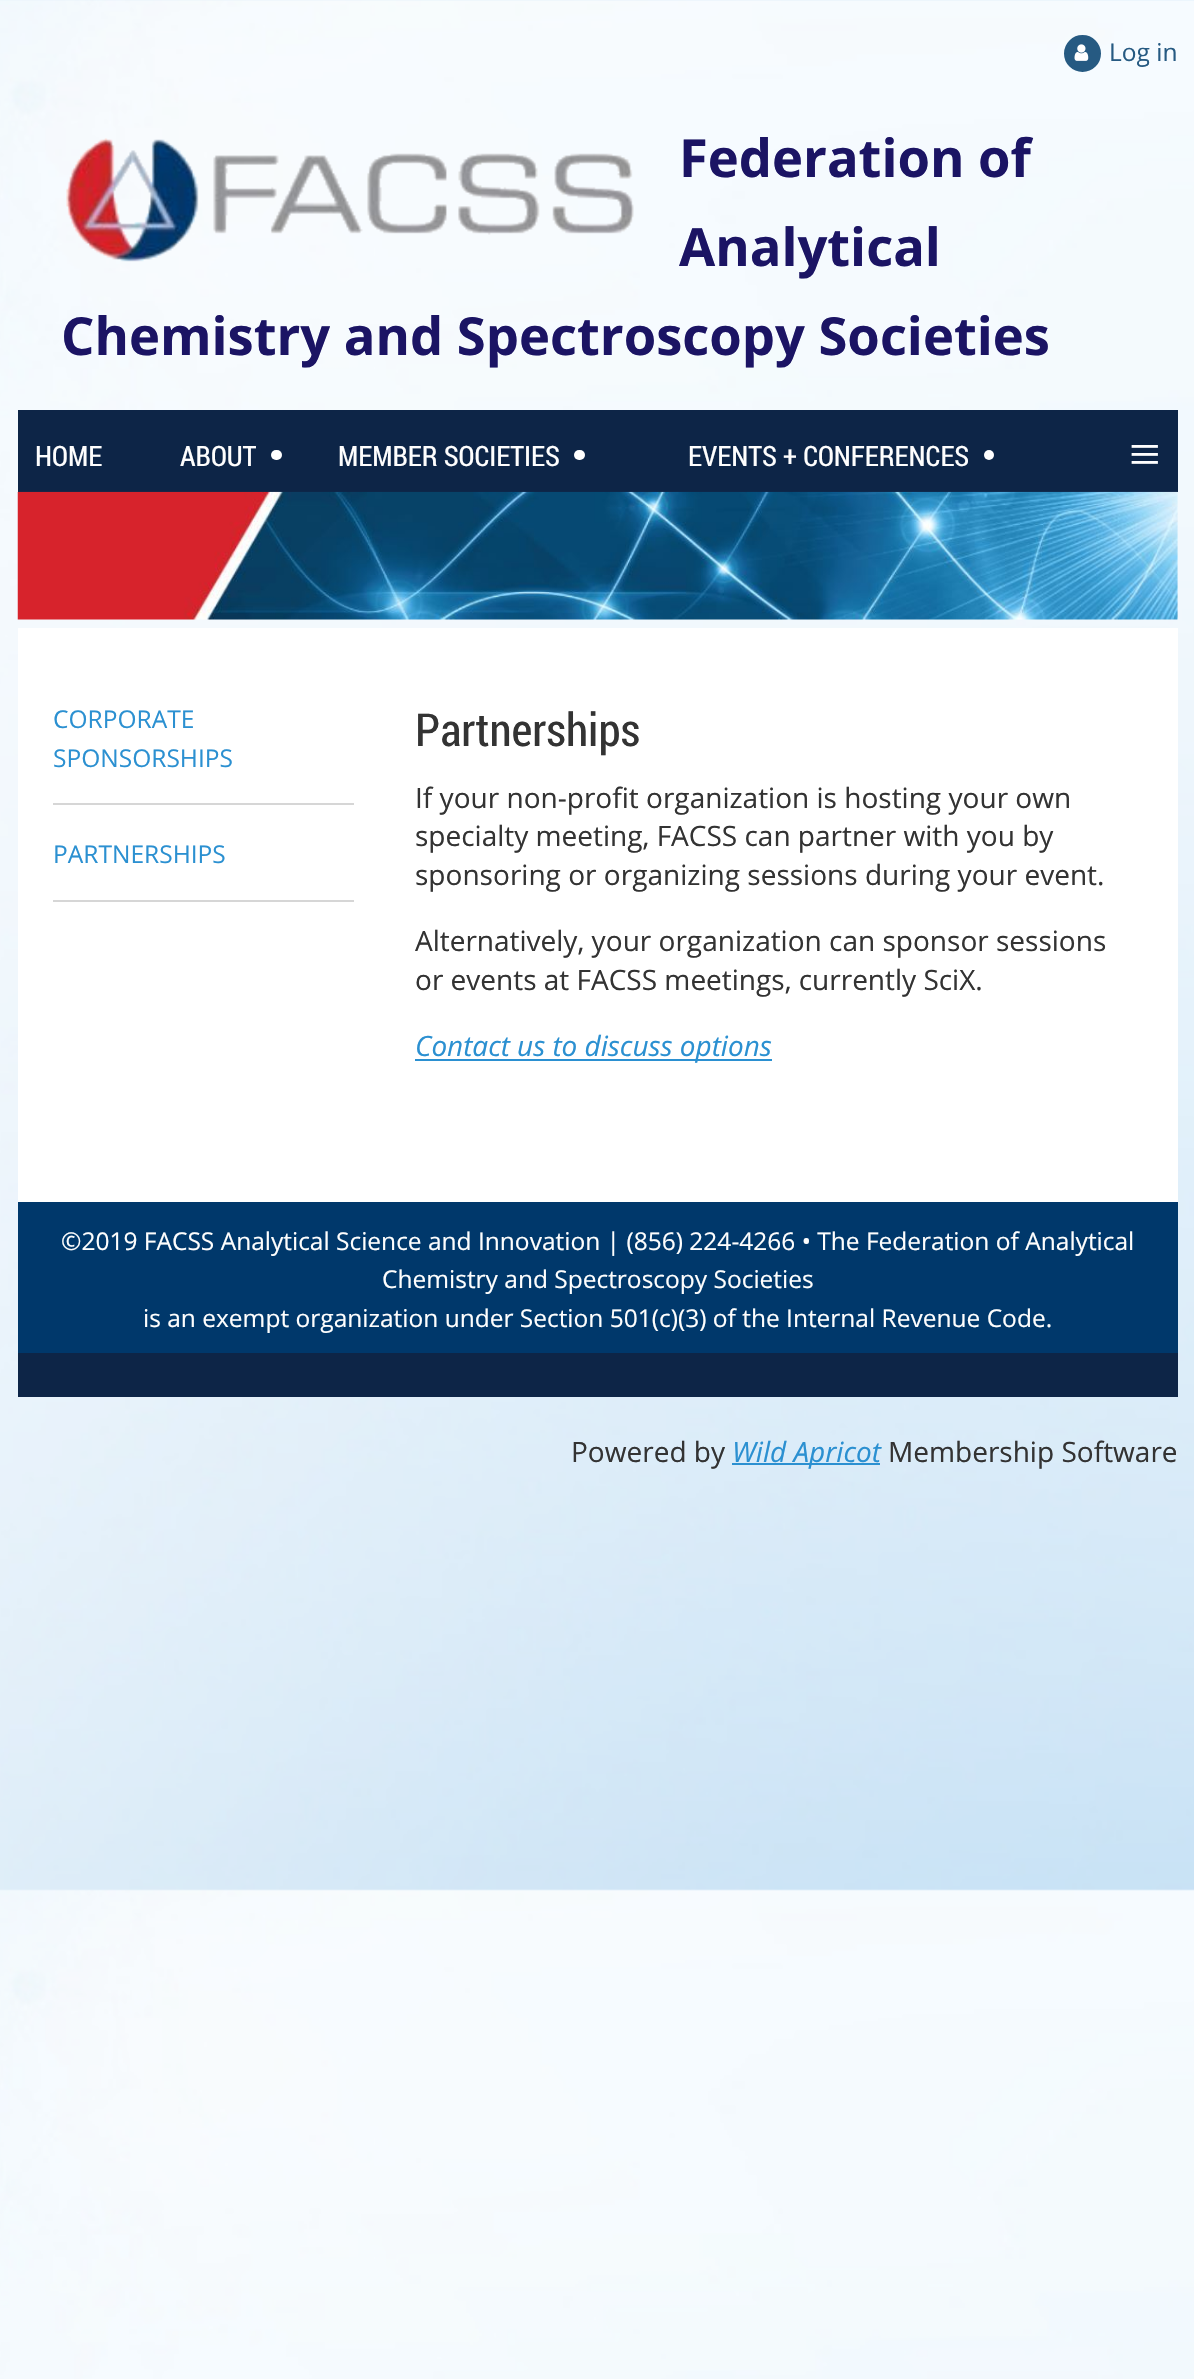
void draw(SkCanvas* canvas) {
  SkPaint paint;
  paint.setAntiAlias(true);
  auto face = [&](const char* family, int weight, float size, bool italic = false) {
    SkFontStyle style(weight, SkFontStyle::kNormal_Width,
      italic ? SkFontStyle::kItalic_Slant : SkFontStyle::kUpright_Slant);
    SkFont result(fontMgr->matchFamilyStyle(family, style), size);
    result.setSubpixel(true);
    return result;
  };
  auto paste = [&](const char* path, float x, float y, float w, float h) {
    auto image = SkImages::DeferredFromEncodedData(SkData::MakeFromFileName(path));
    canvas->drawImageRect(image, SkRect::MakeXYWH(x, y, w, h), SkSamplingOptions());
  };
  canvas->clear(0xffffffff);
  paste("img/1.png", 0, 0, 1194, 2379);
  paint.setColor(0xff265a82);
  canvas->drawCircle(1082.5f, 53.5f, 16.5f, paint);
  paint.setStroke(true);
  paint.setStrokeWidth(4);
  canvas->drawCircle(1082.5f, 53.5f, 16.5f, paint);
  paste("img/2.png", 1074, 44, 15, 17);
  paste("img/3.png", 66, 138, 568, 124);
  paint.setStroke(false);
  paint.setColor(0xff0d2547);
  canvas->drawRect(SkRect::MakeXYWH(18, 410, 1160, 82), paint);
  paint.setColor(0xffffffff);
  canvas->drawRoundRect(SkRect::MakeXYWH(271, 450, 11, 10), 5, 5, paint);
  canvas->drawRoundRect(SkRect::MakeXYWH(574, 450, 11, 10), 5, 5, paint);
  canvas->drawCircle(989, 455, 5, paint);
  paste("img/4.png", 17, 491, 1161, 129);
  {
    const struct { float x, y, w, h; SkColor color; } items[] = {
      {18, 628, 1160, 574, 0xffffffff},
      {53, 803, 301, 2, 0xffd6d6d6},
      {53, 900, 301, 2, 0xffd6d6d6},
      {415, 1059, 357, 2, 0xff2b90d1},
      {18, 1202, 1160, 151, 0xff00386b},
      {18, 1353, 1160, 44, 0xff0d2547},
      {732, 1463, 148, 2, 0xff2b90d1},
    };
    for (auto [x, y, w, h, color] : items) {
      paint.setColor(color);
      canvas->drawRect(SkRect::MakeXYWH(x, y, w, h), paint);
    }
  }
  auto f0 = face("Open Sans", 400, 24.5f);
  paint.setColor(0xff265a82);
  canvas->drawString("Log in", 1109, 61, f0, paint);
  auto f1 = face("Open Sans", 700, 52.5f);
  paint.setColor(0xff1b1464);
  {
    const struct { const char* s; float x, y; } items[] = {
      {"Federation of", 679, 177},
      {"Analytical", 679, 266},
      {"Chemistry and Spectroscopy Societies", 61, 355},
    };
    for (auto [s, x, y] : items) {
      canvas->drawString(s, x, y, f1, paint);
    }
  }
  auto f2 = face("Roboto Condensed", 400, 28);
  paint.setColor(0xfffefefe);
  {
    const struct { const char* s; float x, y; } items[] = {
      {"HOME", 35, 466},
      {"ABOUT", 180, 466},
      {"MEMBER SOCIETIES", 338, 466},
      {"EVENTS + CONFERENCES", 688, 466},
    };
    for (auto [s, x, y] : items) {
      canvas->drawString(s, x, y, f2, paint);
    }
  }
  auto f3 = face("Liberation Serif", 400, 56);
  canvas->drawString("≡", 1129, 473, f3, paint);
  paint.setColor(0xff2b90d1);
  {
    const struct { const char* s; float x, y; } items[] = {
      {"CORPORATE", 53, 728},
      {"SPONSORSHIPS", 53, 767},
      {"PARTNERSHIPS", 53, 863},
    };
    for (auto [s, x, y] : items) {
      canvas->drawString(s, x, y, f0, paint);
    }
  }
  auto f4 = face("Roboto Condensed", 400, 45.5f);
  paint.setColor(0xff333333);
  canvas->drawString("Partnerships", 415, 746, f4, paint);
  auto f5 = face("Open Sans", 400, 28);
  {
    const struct { const char* s; float x, y; } items[] = {
      {"If your non-profit organization is hosting your own", 415, 808},
      {"specialty meeting, FACSS can partner with you by", 415, 846},
      {"sponsoring or organizing sessions during your event.", 415, 885},
      {"Alternatively, your organization can sponsor sessions", 415, 951},
      {"or events at FACSS meetings, currently SciX.", 415, 990},
    };
    for (auto [s, x, y] : items) {
      canvas->drawString(s, x, y, f5, paint);
    }
  }
  auto f6 = face("Open Sans", 400, 28, true);
  paint.setColor(0xff2b90d1);
  canvas->drawString("Contact us to discuss options", 415, 1056, f6, paint);
  paint.setColor(0xfffefefe);
  {
    const struct { const char* s; float x, y; } items[] = {
      {"©2019 FACSS Analytical Science and Innovation | (856) 224-4266 • The Federation of Analytical", 61, 1250},
      {"Chemistry and Spectroscopy Societies", 382, 1288},
      {"is an exempt organization under Section 501(c)(3) of the Internal Revenue Code.", 143, 1327},
    };
    for (auto [s, x, y] : items) {
      canvas->drawString(s, x, y, f0, paint);
    }
  }
  paint.setColor(0xff333333);
  canvas->drawString("Powered by", 571, 1462, f5, paint);
  paint.setColor(0xff2b90d1);
  canvas->drawString("Wild Apricot", 732, 1462, f6, paint);
  paint.setColor(0xff333333);
  canvas->drawString("Membership Software", 888, 1462, f5, paint);
}
